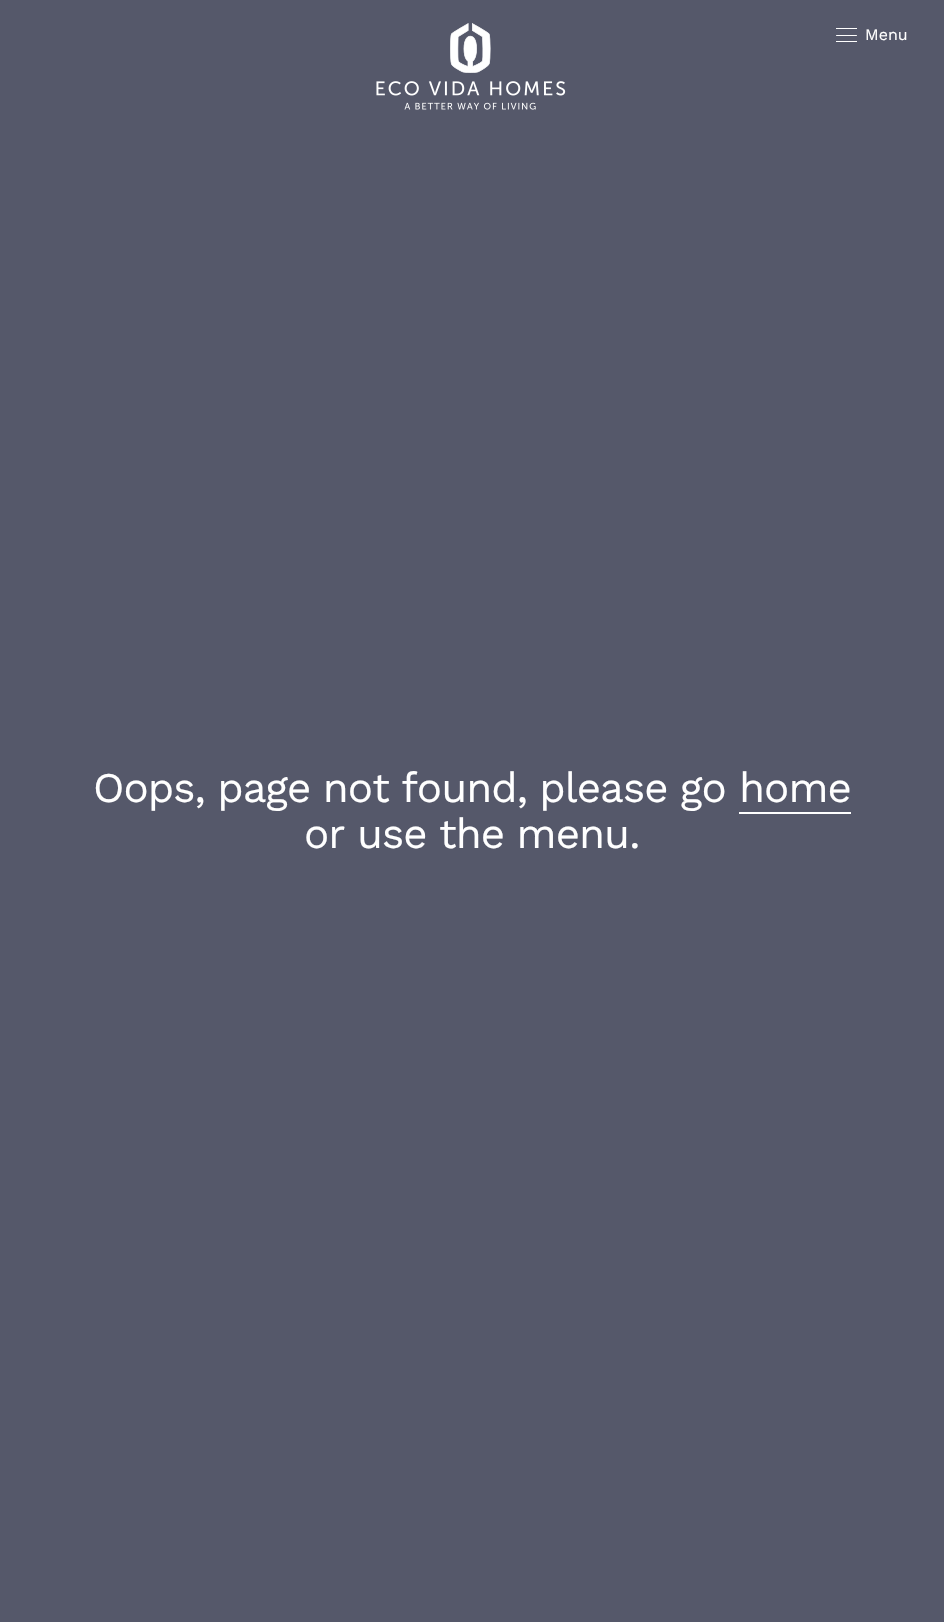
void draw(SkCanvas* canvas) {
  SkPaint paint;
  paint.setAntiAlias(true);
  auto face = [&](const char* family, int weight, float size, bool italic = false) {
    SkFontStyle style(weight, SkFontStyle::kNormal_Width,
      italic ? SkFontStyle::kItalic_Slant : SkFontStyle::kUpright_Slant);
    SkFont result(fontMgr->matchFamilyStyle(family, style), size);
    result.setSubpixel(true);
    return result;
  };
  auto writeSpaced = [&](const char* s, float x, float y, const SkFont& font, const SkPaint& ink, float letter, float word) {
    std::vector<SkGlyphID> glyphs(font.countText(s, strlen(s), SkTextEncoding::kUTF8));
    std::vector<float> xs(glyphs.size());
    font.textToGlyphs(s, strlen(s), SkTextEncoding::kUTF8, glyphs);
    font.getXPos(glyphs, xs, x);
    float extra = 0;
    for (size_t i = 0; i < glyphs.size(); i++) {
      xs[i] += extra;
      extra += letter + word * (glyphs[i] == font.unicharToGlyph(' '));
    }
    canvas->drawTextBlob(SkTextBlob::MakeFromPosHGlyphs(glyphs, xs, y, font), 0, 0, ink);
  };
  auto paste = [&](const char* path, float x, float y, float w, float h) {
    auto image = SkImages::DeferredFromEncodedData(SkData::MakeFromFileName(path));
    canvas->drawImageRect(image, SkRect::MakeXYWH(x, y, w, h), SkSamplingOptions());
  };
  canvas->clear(0xff55586a);
  paste("img/1.png", 376, 23, 190, 87);
  paint.setColor(0xffffffff);
  canvas->drawRoundRect(SkRect::MakeXYWH(836, 35, 21, 1), 0.5f, 0.5f, paint);
  {
    const struct { float x, y, w, h; SkColor color; } items[] = {
      {836, 28, 21, 1, 0xffffffff},
      {836, 41, 21, 1, 0xffffffff},
      {739, 812, 112, 2, 0xffffffff},
    };
    for (auto [x, y, w, h, color] : items) {
      paint.setColor(color);
      canvas->drawRect(SkRect::MakeXYWH(x, y, w, h), paint);
    }
  }
  auto f0 = face("Work Sans", 400, 16);
  canvas->drawString("Menu", 865, 40, f0, paint);
  auto f1 = face("Work Sans", 400, 42.1f);
  writeSpaced("Oops, page not found, please go", 93, 802, f1, paint, -0.95f, -1);
  writeSpaced("home", 739, 802, f1, paint, -0.95f, 0);
  writeSpaced("or use the menu.", 304, 848, f1, paint, -0.95f, -1);
}
